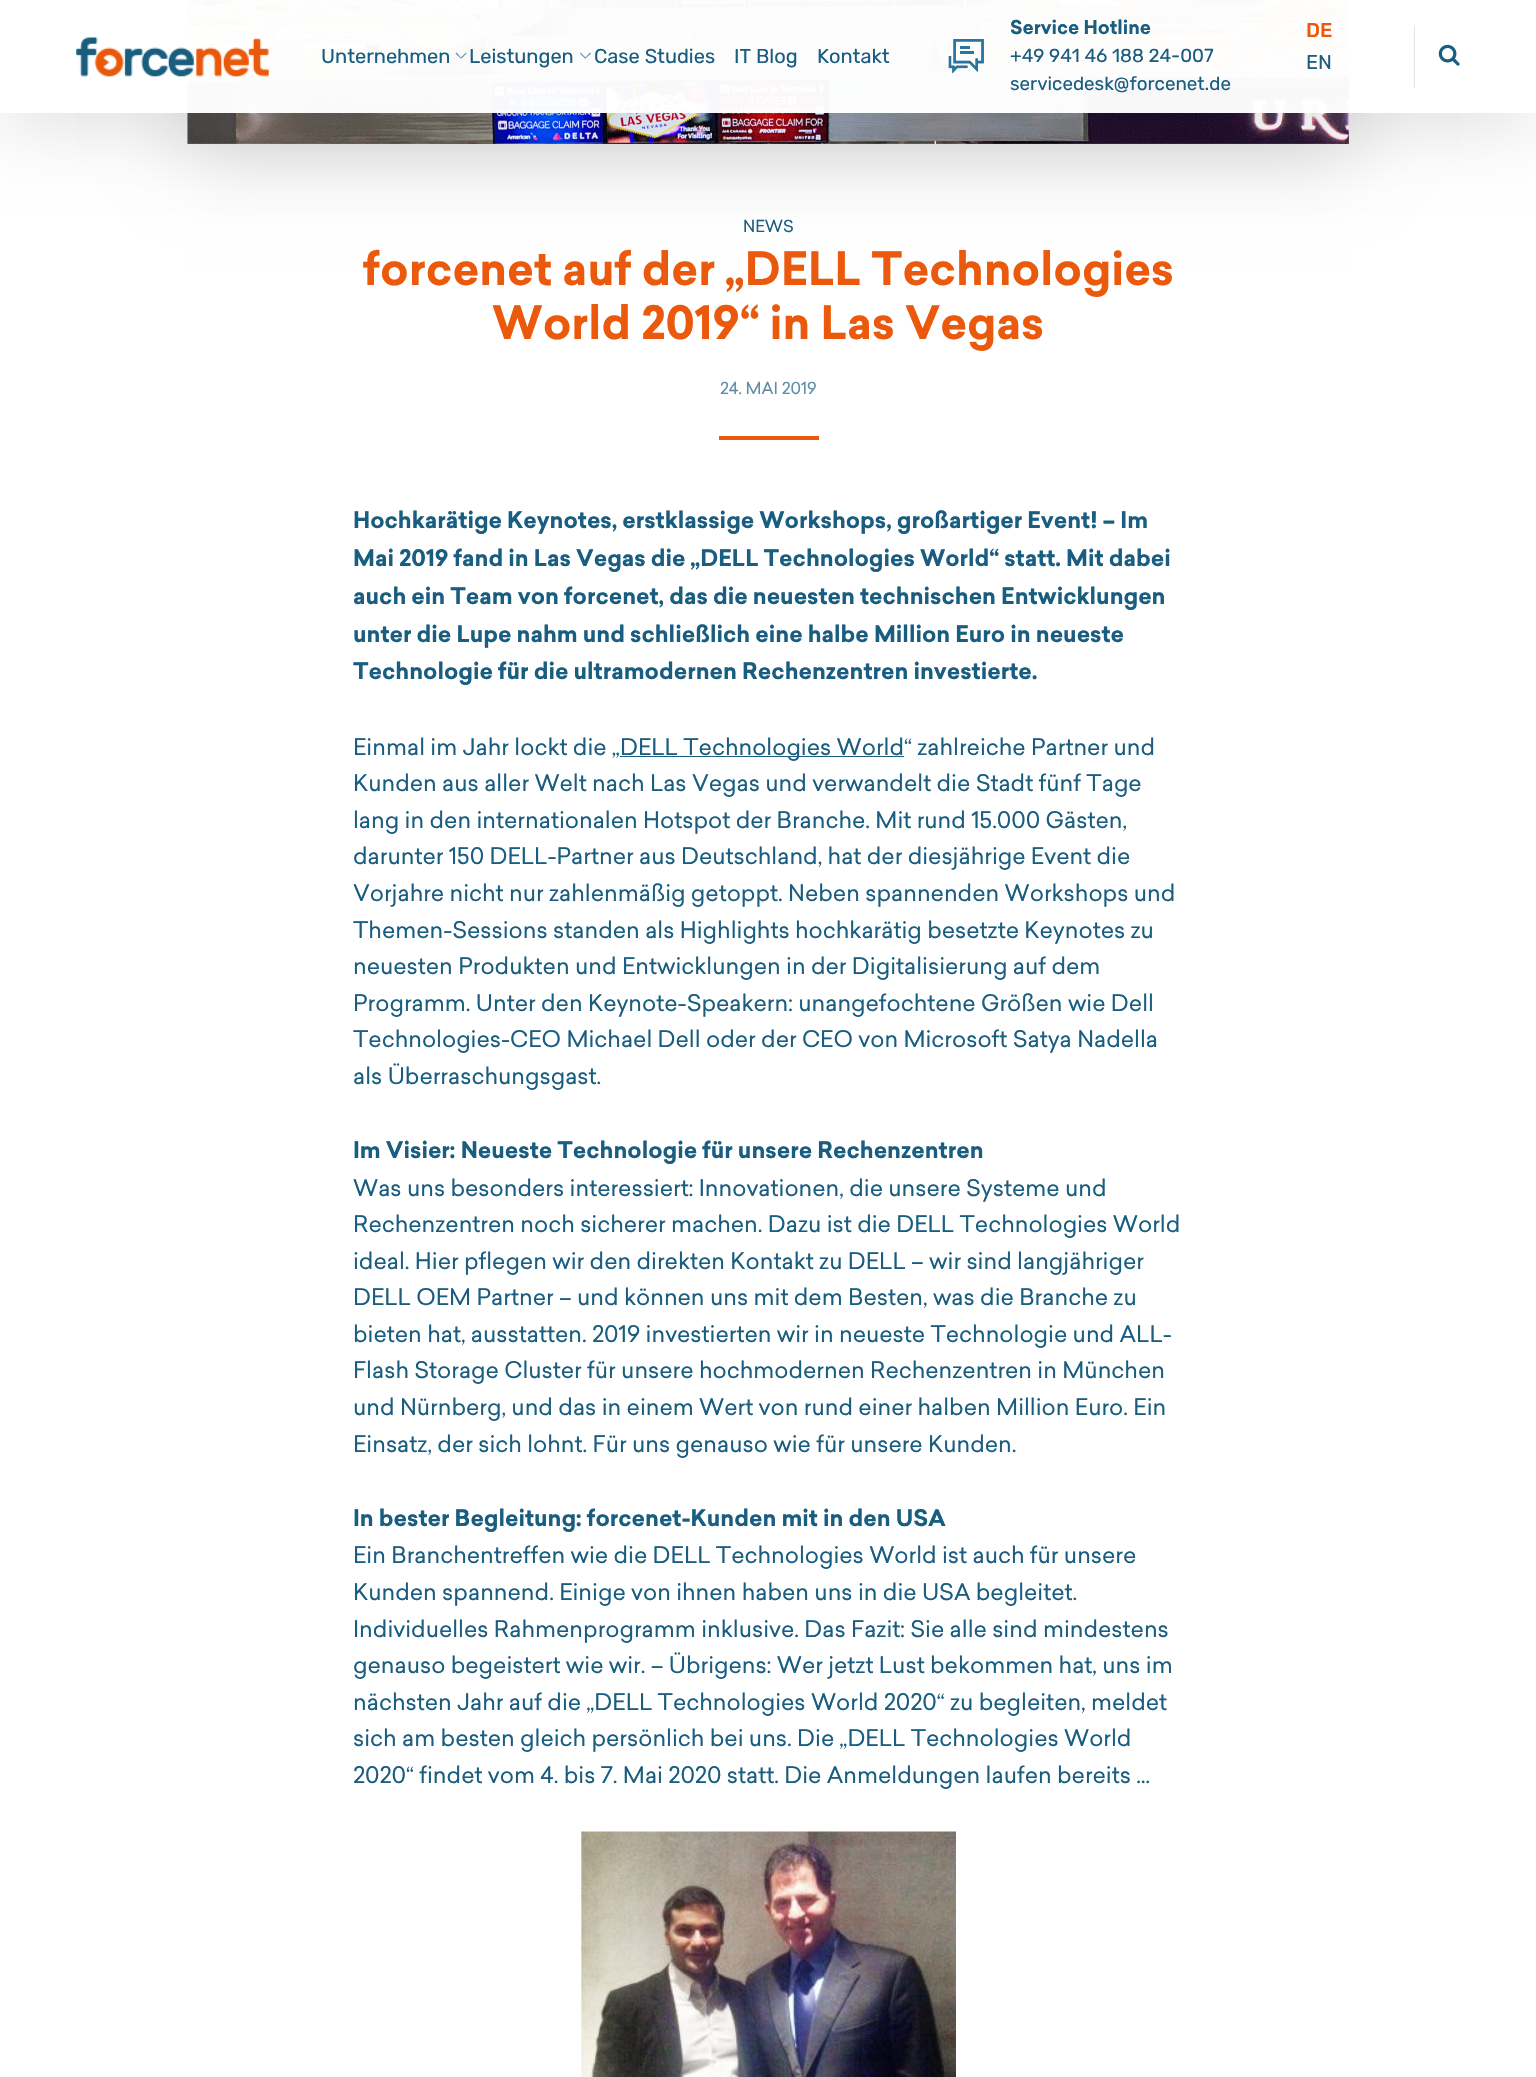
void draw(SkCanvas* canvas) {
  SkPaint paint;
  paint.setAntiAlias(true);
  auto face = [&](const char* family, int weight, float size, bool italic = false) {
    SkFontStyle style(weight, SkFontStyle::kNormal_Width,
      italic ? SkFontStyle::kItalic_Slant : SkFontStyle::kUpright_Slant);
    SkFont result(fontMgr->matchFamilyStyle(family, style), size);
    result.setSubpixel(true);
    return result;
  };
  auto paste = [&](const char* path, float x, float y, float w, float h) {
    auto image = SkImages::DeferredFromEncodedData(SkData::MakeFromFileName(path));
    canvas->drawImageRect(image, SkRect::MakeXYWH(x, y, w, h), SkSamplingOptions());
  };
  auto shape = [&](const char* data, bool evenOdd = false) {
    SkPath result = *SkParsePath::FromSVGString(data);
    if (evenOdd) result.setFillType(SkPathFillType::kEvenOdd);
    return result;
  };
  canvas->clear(0xffffffff);
  paint.setColor(0x26000000);
  paint.setMaskFilter(SkMaskFilter::MakeBlur(kNormal_SkBlurStyle, 37.5f));
  canvas->drawRect(SkRect::MakeXYWH(188, -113, 1161, 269), paint);
  paint.setMaskFilter(nullptr);
  paste("img/4.png", 187, 0, 1162, 144);
  canvas->save();
  canvas->clipPath(shape("M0 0H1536V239H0ZM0 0H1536V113H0Z", true), true);
  paint.setColor(0x1f000000);
  paint.setMaskFilter(SkMaskFilter::MakeBlur(kNormal_SkBlurStyle, 37.5f));
  canvas->drawRect(SkRect::MakeXYWH(0, 13, 1536, 112), paint);
  paint.setMaskFilter(nullptr);
  canvas->restore();
  paint.setColor(0xf7ffffff);
  canvas->drawRect(SkRect::MakeXYWH(0, 0, 1536, 113), paint);
  paste("img/1.png", 76, 37, 193, 40);
  paint.setColor(0xff5d8ca5);
  canvas->drawPath(shape("M456.5 52.5L461.5 58L461 58.5L455.5 53.5Z"), paint);
  paint.setColor(0xb3195d80);
  canvas->drawPath(shape("M460.5 58L466 52.5L466.5 53.5L461.5 58.5Z"), paint);
  paint.setColor(0xff5d8da5);
  canvas->drawPath(shape("M580.5 52.5L586 58L585 58.5L580 53.5Z"), paint);
  paint.setColor(0xb3195d80);
  canvas->drawPath(shape("M585 58L590 52.5L591 53.5L585.5 58.5Z"), paint);
  paste("img/2.png", 948, 39, 36, 35);
  paint.setColor(0xffdce7ec);
  canvas->drawRect(SkRect::MakeXYWH(1414, 25, 1, 63), paint);
  paste("img/3.png", 1438, 44, 22, 22);
  paint.setColor(0xffeb5a0c);
  canvas->drawRect(SkRect::MakeXYWH(719, 436, 100, 4), paint);
  paint.setColor(0xff195d80);
  canvas->drawRect(SkRect::MakeXYWH(620, 756, 284, 1), paint);
  paste("img/5.png", 581, 1831, 375, 246);
  auto f0 = face("Rubik", 400, 20);
  {
    const struct { const char* s; float x, y; } items[] = {
      {"Unternehmen", 321, 63},
      {"Leistungen", 469, 63},
      {"Case Studies", 594, 63},
      {"IT Blog", 734, 63},
      {"Kontakt", 817, 63},
    };
    for (auto [s, x, y] : items) {
      canvas->drawString(s, x, y, f0, paint);
    }
  }
  auto f1 = face("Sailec", 700, 18.75f);
  canvas->drawString("Service Hotline", 1010, 34, f1, paint);
  auto f2 = face("Rubik", 400, 18.75f);
  canvas->drawString("+49 941 46 188 24-007", 1010, 62, f2, paint);
  canvas->drawString("servicedesk@forcenet.de", 1010, 90, f2, paint);
  auto f3 = face("Rubik", 500, 20);
  paint.setColor(0xffeb5a0c);
  canvas->drawString("DE", 1306, 37, f3, paint);
  paint.setColor(0xff195d80);
  canvas->drawString("EN", 1306, 69, f0, paint);
  auto f4 = face("Sailec", 400, 16.25f);
  canvas->drawString("NEWS", 743, 232, f4, paint);
  auto f5 = face("Sailec", 700, 45);
  paint.setColor(0xffeb5a0c);
  canvas->drawString("forcenet auf der „DELL Technologies", 363, 285, f5, paint);
  canvas->drawString("World 2019“ in Las Vegas", 492, 339, f5, paint);
  paint.setColor(0xff5e8ea6);
  canvas->drawString("24. MAI 2019", 720, 394, f4, paint);
  auto f6 = face("Sailec", 700, 22.5f);
  paint.setColor(0xff195d80);
  {
    const struct { const char* s; float x, y; } items[] = {
      {"Hochkarätige Keynotes, erstklassige Workshops, großartiger Event! – Im", 353, 528},
      {"Mai 2019 fand in Las Vegas die „DELL Technologies World“ statt. Mit dabei", 353, 566},
      {"auch ein Team von forcenet, das die neuesten technischen Entwicklungen", 353, 604},
      {"unter die Lupe nahm und schließlich eine halbe Million Euro in neueste", 353, 642},
      {"Technologie für die ultramodernen Rechenzentren investierte.", 353, 679},
    };
    for (auto [s, x, y] : items) {
      canvas->drawString(s, x, y, f6, paint);
    }
  }
  auto f7 = face("Sailec", 400, 22.5f);
  {
    const struct { const char* s; float x, y; } items[] = {
      {"Einmal im Jahr lockt die „", 353, 755},
      {"DELL Technologies World“ zahlreiche Partner und", 620, 755},
      {"Kunden aus aller Welt nach Las Vegas und verwandelt die Stadt fünf Tage", 353, 791},
      {"lang in den internationalen Hotspot der Branche. Mit rund 15.000 Gästen,", 353, 828},
      {"darunter 150 DELL-Partner aus Deutschland, hat der diesjährige Event die", 353, 864},
      {"Vorjahre nicht nur zahlenmäßig getoppt. Neben spannenden Workshops und", 353, 901},
      {"Themen-Sessions standen als Highlights hochkarätig besetzte Keynotes zu", 353, 938},
      {"neuesten Produkten und Entwicklungen in der Digitalisierung auf dem", 353, 974},
      {"Programm. Unter den Keynote-Speakern: unangefochtene Größen wie Dell", 353, 1011},
      {"Technologies-CEO Michael Dell oder der CEO von Microsoft Satya Nadella", 353, 1047},
      {"als Überraschungsgast.", 353, 1084},
    };
    for (auto [s, x, y] : items) {
      canvas->drawString(s, x, y, f7, paint);
    }
  }
  canvas->drawString("Im Visier: Neueste Technologie für unsere Rechenzentren", 353, 1158, f6, paint);
  {
    const struct { const char* s; float x, y; } items[] = {
      {"Was uns besonders interessiert: Innovationen, die unsere Systeme und", 353, 1196},
      {"Rechenzentren noch sicherer machen. Dazu ist die DELL Technologies World", 353, 1232},
      {"ideal. Hier pflegen wir den direkten Kontakt zu DELL – wir sind langjähriger", 353, 1269},
      {"DELL OEM Partner – und können uns mit dem Besten, was die Branche zu", 353, 1305},
      {"bieten hat, ausstatten. 2019 investierten wir in neueste Technologie und ALL-", 353, 1342},
      {"Flash Storage Cluster für unsere hochmodernen Rechenzentren in München", 353, 1378},
      {"und Nürnberg, und das in einem Wert von rund einer halben Million Euro. Ein", 353, 1415},
      {"Einsatz, der sich lohnt. Für uns genauso wie für unsere Kunden.", 353, 1452},
    };
    for (auto [s, x, y] : items) {
      canvas->drawString(s, x, y, f7, paint);
    }
  }
  canvas->drawString("In bester Begleitung: forcenet-Kunden mit in den USA", 353, 1526, f6, paint);
  {
    const struct { const char* s; float x, y; } items[] = {
      {"Ein Branchentreffen wie die DELL Technologies World ist auch für unsere", 353, 1563},
      {"Kunden spannend. Einige von ihnen haben uns in die USA begleitet.", 353, 1600},
      {"Individuelles Rahmenprogramm inklusive. Das Fazit: Sie alle sind mindestens", 353, 1637},
      {"genauso begeistert wie wir. – Übrigens: Wer jetzt Lust bekommen hat, uns im", 353, 1673},
      {"nächsten Jahr auf die „DELL Technologies World 2020“ zu begleiten, meldet", 353, 1710},
      {"sich am besten gleich persönlich bei uns. Die „DELL Technologies World", 353, 1746},
      {"2020“ findet vom 4. bis 7. Mai 2020 statt. Die Anmeldungen laufen bereits …", 353, 1783},
    };
    for (auto [s, x, y] : items) {
      canvas->drawString(s, x, y, f7, paint);
    }
  }
}
